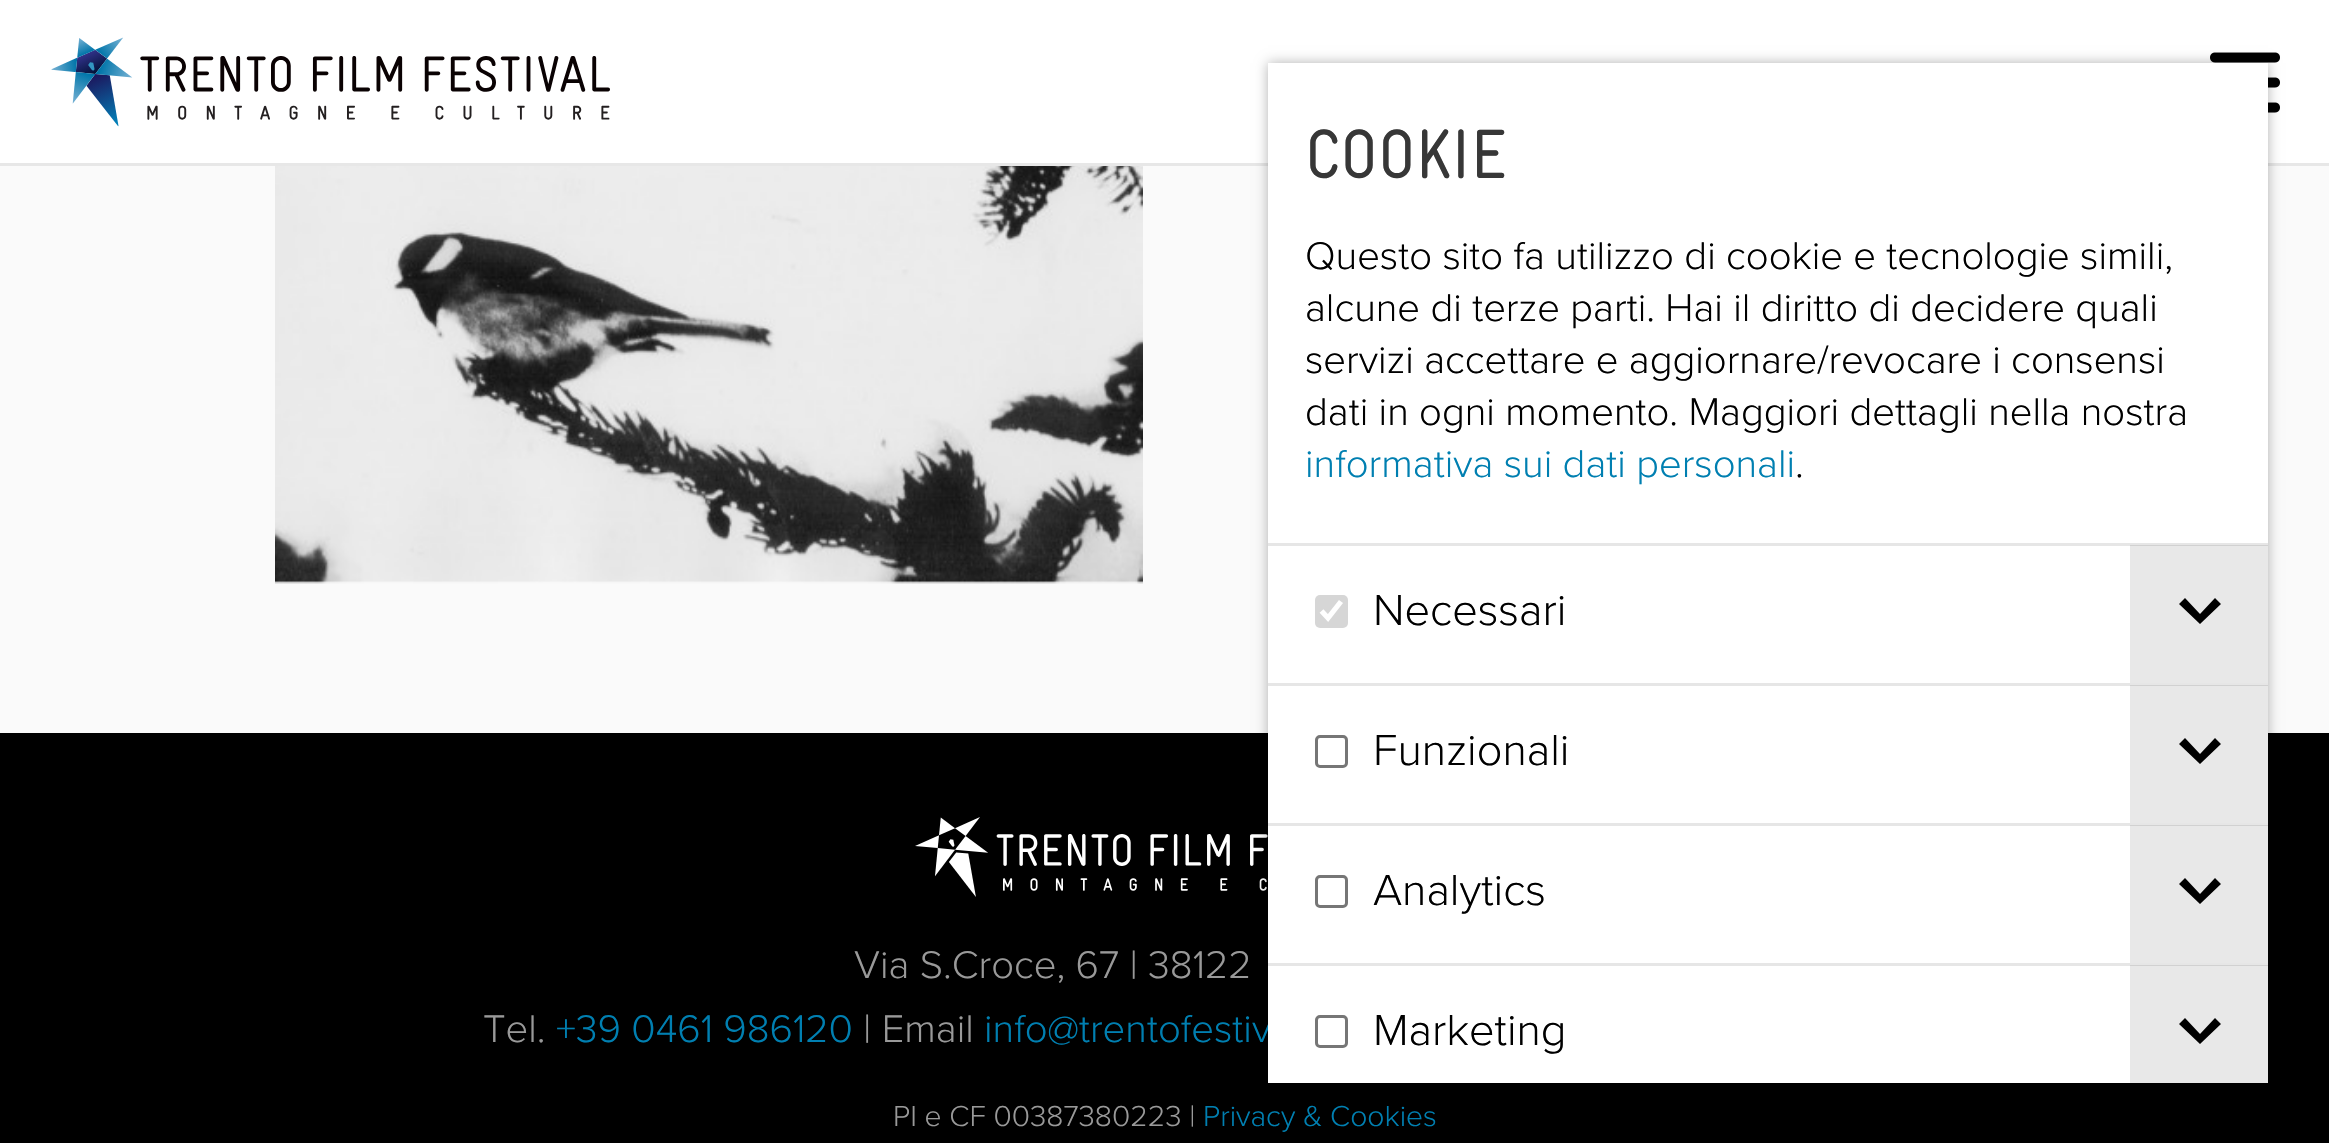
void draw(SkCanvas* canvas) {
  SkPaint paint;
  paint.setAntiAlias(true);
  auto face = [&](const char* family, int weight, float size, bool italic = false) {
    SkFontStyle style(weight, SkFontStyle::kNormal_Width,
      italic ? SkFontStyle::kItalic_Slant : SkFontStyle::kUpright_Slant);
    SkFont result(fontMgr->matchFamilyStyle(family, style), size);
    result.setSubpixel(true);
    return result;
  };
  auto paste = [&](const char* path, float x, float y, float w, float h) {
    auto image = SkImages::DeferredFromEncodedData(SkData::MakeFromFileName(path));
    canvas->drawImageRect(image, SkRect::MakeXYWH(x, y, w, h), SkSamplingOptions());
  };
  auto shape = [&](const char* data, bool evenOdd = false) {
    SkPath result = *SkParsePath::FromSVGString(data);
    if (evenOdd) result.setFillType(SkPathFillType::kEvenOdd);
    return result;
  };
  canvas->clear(0xfffafafa);
  paint.setColor(0xffffffff);
  canvas->drawRect(SkRect::MakeXYWH(0, 0, 2329, 163), paint);
  paint.setColor(0xffe7e7e7);
  canvas->drawRect(SkRect::MakeXYWH(0, 163, 2329, 3), paint);
  paste("img/1.png", 51, 37, 559, 90);
  paste("img/2.png", 2210, 52, 70, 61);
  paste("img/3.png", 275, 166, 868, 418);
  paint.setColor(0xff000000);
  canvas->drawRect(SkRect::MakeXYWH(0, 733, 2329, 410), paint);
  paste("img/4.png", 915, 817, 353, 80);
  paint.setColor(0x4d000000);
  paint.setMaskFilter(SkMaskFilter::MakeBlur(kNormal_SkBlurStyle, 6));
  canvas->drawRect(SkRect::MakeXYWH(1268, 63, 1000, 1020), paint);
  paint.setMaskFilter(nullptr);
  auto f0 = face("Proxima Nova", 300, 40);
  paint.setColor(0xff999999);
  canvas->drawString("Via S.Croce, 67 | 38122", 854, 978, f0, paint);
  canvas->drawString("Tel.", 483, 1042, f0, paint);
  paint.setColor(0xff007fb1);
  canvas->drawString("+39 0461 986120", 556, 1042, f0, paint);
  paint.setColor(0xff999999);
  canvas->drawString("| Email", 863, 1042, f0, paint);
  paint.setColor(0xff007fb1);
  canvas->drawString("info@trentofestiv", 984, 1042, f0, paint);
  auto f1 = face("Proxima Nova", 300, 30);
  paint.setColor(0xff999999);
  canvas->drawString("PI e CF 00387380223 |", 893, 1126, f1, paint);
  paint.setColor(0xff007fb1);
  canvas->drawString("Privacy & Cookies", 1203, 1126, f1, paint);
  paint.setColor(0xffffffff);
  canvas->drawRect(SkRect::MakeXYWH(1268, 63, 1000, 1020), paint);
  auto f2 = face("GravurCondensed", 400, 70);
  paint.setColor(0xff373737);
  canvas->drawString("COOKIE", 1305, 178, f2, paint);
  paint.setColor(0xff000000);
  {
    const struct { const char* s; float x, y; } items[] = {
      {"Questo sito fa utilizzo di cookie e tecnologie simili,", 1305, 269},
      {"alcune di terze parti. Hai il diritto di decidere quali", 1305, 321},
      {"servizi accettare e aggiornare/revocare i consensi", 1305, 373},
      {"dati in ogni momento. Maggiori dettagli nella nostra", 1305, 425},
    };
    for (auto [s, x, y] : items) {
      canvas->drawString(s, x, y, f0, paint);
    }
  }
  paint.setColor(0xff007fb1);
  canvas->drawString("informativa sui dati personali", 1305, 477, f0, paint);
  paint.setColor(0xff000000);
  canvas->drawString(".", 1795, 477, f0, paint);
  paint.setColor(0xffe6e6e6);
  canvas->drawRect(SkRect::MakeXYWH(1268, 543, 1000, 3), paint);
  paint.setColor(0xffd6d6d6);
  canvas->drawRoundRect(SkRect::MakeXYWH(1315, 595, 33, 33), 5, 5, paint);
  paint.setStroke(true);
  paint.setStrokeWidth(5.2f);
  paint.setColor(0xffffffff);
  canvas->drawPath(shape("M1321.5 611L1328 618L1341 601.5"), paint);
  auto f3 = face("Proxima Nova", 300, 45);
  paint.setStroke(false);
  paint.setColor(0xff000000);
  canvas->drawString("Necessari", 1373, 625, f3, paint);
  paint.setColor(0x17000000);
  canvas->drawRect(SkRect::MakeXYWH(2130, 545, 138, 138), paint);
  paint.setColor(0xff000000);
  canvas->drawPath(shape("M2215 598L2221 604L2200 624L2179 604L2185 598L2200 614Z"), paint);
  paint.setColor(0xffe6e6e6);
  canvas->drawRect(SkRect::MakeXYWH(1268, 683, 1000, 3), paint);
  paint.setStroke(true);
  paint.setStrokeWidth(3);
  paint.setColor(0xff767676);
  canvas->drawRoundRect(SkRect::MakeXYWH(1316.5f, 736.5f, 30, 30), 3.5f, 3.5f, paint);
  paint.setStroke(false);
  paint.setColor(0xff000000);
  canvas->drawString("Funzionali", 1373, 765, f3, paint);
  paint.setColor(0x17000000);
  canvas->drawRect(SkRect::MakeXYWH(2130, 685, 138, 138), paint);
  paint.setColor(0xff000000);
  canvas->drawPath(shape("M2215 738L2221 744L2200 764L2179 744L2185 738L2200 754Z"), paint);
  paint.setColor(0xffe6e6e6);
  canvas->drawRect(SkRect::MakeXYWH(1268, 823, 1000, 3), paint);
  paint.setStroke(true);
  paint.setColor(0xff767676);
  canvas->drawRoundRect(SkRect::MakeXYWH(1316.5f, 876.5f, 30, 30), 3.5f, 3.5f, paint);
  paint.setStroke(false);
  paint.setColor(0xff000000);
  canvas->drawString("Analytics", 1373, 905, f3, paint);
  paint.setColor(0x17000000);
  canvas->drawRect(SkRect::MakeXYWH(2130, 825, 138, 138), paint);
  paint.setColor(0xff000000);
  canvas->drawPath(shape("M2215 878L2221 884L2200 904L2179 884L2185 878L2200 894Z"), paint);
  paint.setColor(0xffe6e6e6);
  canvas->drawRect(SkRect::MakeXYWH(1268, 963, 1000, 3), paint);
  paint.setStroke(true);
  paint.setColor(0xff767676);
  canvas->drawRoundRect(SkRect::MakeXYWH(1316.5f, 1016.5f, 30, 30), 3.5f, 3.5f, paint);
  paint.setStroke(false);
  paint.setColor(0xff000000);
  canvas->drawString("Marketing", 1373, 1045, f3, paint);
  paint.setColor(0x17000000);
  canvas->drawRect(SkRect::MakeXYWH(2130, 965, 138, 118), paint);
  paint.setColor(0xff000000);
  canvas->drawPath(shape("M2215 1018L2221 1024L2200 1044L2179 1024L2185 1018L2200 1034Z"), paint);
}
